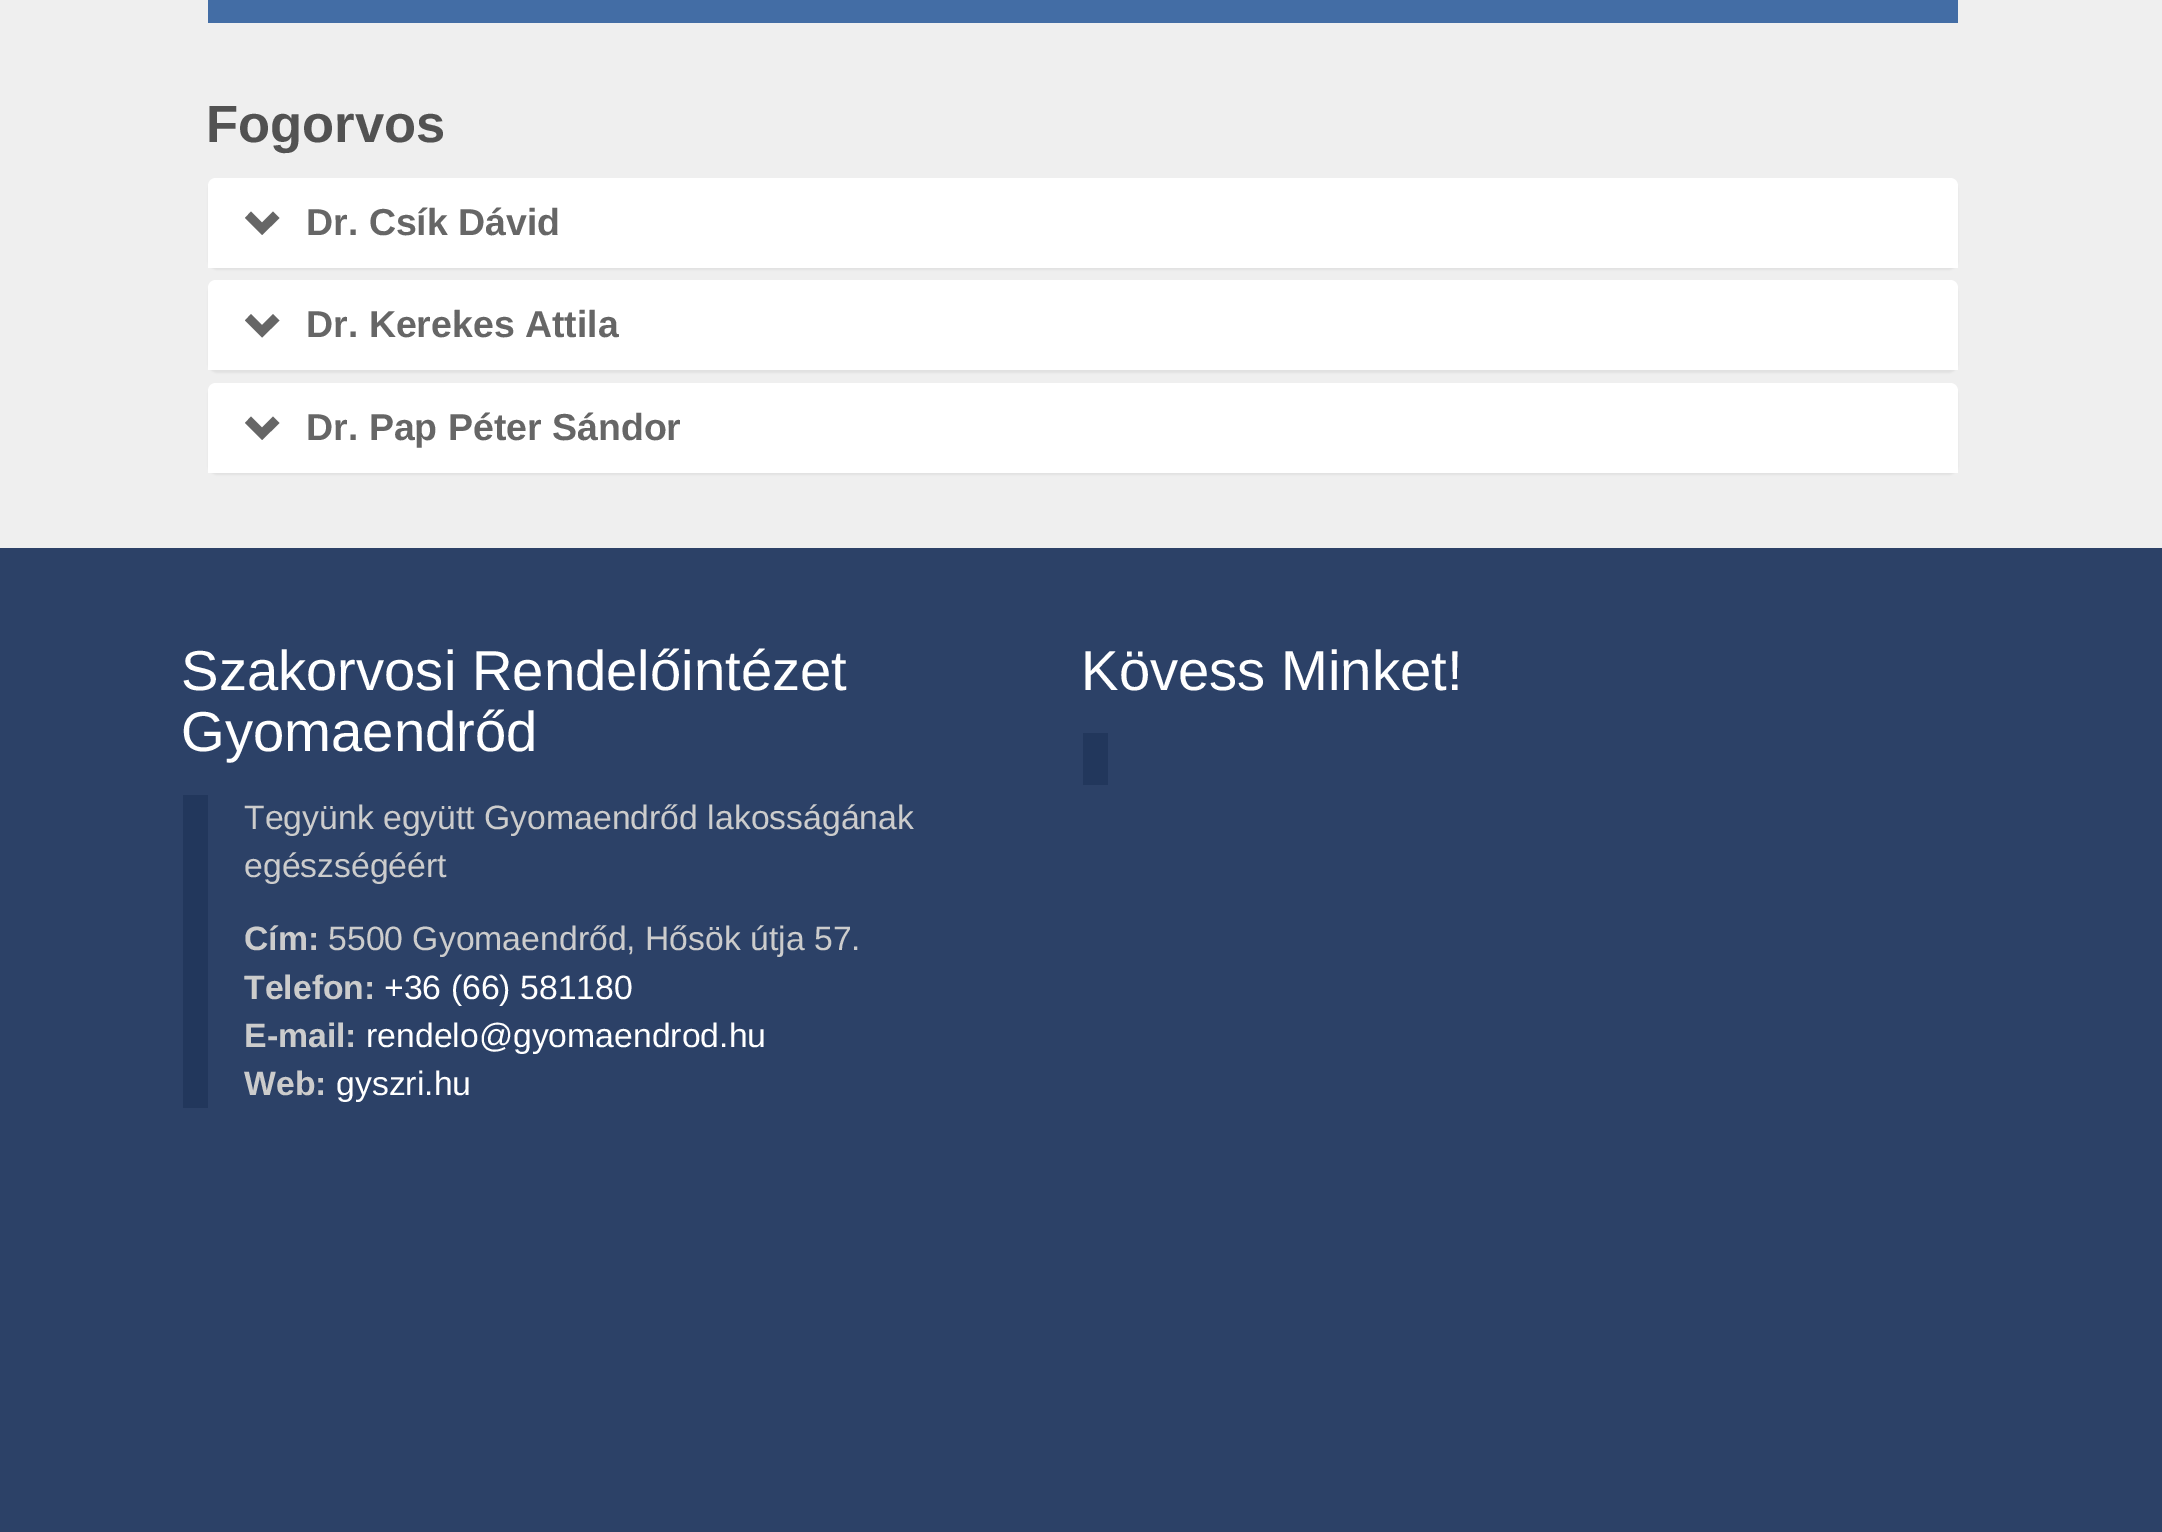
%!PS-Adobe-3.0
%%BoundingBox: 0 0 2162 1532
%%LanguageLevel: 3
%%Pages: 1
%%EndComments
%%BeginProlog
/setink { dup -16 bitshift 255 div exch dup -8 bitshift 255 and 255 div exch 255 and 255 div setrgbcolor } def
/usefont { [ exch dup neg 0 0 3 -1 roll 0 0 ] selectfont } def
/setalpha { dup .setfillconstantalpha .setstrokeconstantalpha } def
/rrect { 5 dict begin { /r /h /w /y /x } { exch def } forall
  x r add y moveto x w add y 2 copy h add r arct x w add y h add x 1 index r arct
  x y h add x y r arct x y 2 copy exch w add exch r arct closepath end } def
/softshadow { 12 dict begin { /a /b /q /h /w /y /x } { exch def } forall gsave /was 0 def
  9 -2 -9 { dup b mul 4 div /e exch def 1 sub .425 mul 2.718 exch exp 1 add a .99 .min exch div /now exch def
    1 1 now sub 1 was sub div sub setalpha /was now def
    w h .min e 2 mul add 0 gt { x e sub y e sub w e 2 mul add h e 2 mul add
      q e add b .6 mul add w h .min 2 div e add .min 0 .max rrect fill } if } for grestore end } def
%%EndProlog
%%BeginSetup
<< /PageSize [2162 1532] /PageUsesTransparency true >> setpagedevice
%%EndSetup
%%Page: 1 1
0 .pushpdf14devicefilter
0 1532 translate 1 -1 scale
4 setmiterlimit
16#EFEFEF setink
0 0 2162 1532 rectfill
16#436DA5 setink
208 0 1750 23 rectfill
/LiberationSans-Bold 52.5 usefont
16#525252 setink
206 142 moveto (Fogorvos) show
16#000000 setink
208 180 1750 90 10 1 0.05 softshadow
16#FFFFFF setink
216 178 moveto 1950 178 lineto 1954.5 178 1958 181.5 1958 186 curveto 1958 268 lineto 208 268 lineto 208 186 lineto 208 181.5 211.5 178 216 178 curveto closepath fill
16#666666 setink
279.5 218 moveto 262 235 lineto 245 218 lineto 251 211.5 lineto 262 222.5 lineto 273 211.5 lineto closepath fill
/LiberationSans-Bold 37.5 usefont
306 235 moveto (Dr. Csík Dávid) show
16#000000 setink
208 283 1750 90 10 1 0.05 softshadow
16#FFFFFF setink
216 280 moveto 1950 280 lineto 1954.5 280 1958 283.5 1958 288 curveto 1958 370 lineto 208 370 lineto 208 288 lineto 208 283.5 211.5 280 216 280 curveto closepath fill
16#666666 setink
279.5 320.5 moveto 262 337.5 lineto 245 320.5 lineto 251 314 lineto 262 325 lineto 273 314 lineto closepath fill
306 337 moveto (Dr. Kerekes Attila) show
16#000000 setink
208 385 1750 90 10 1 0.05 softshadow
16#FFFFFF setink
216 383 moveto 1950 383 lineto 1954.5 383 1958 386.5 1958 391 curveto 1958 473 lineto 208 473 lineto 208 391 lineto 208 386.5 211.5 383 216 383 curveto closepath fill
16#666666 setink
279.5 423 moveto 262 440 lineto 245 423 lineto 251 416.5 lineto 262 427.5 lineto 273 416.5 lineto closepath fill
306 440 moveto (Dr. Pap Péter Sándor) show
16#2C4167 setink
0 548 2162 984 rectfill
/LiberationSans-Regular 56.25 usefont
16#FFFFFF setink
181 690 moveto (Szakorvosi Rendelőintézet) show
181 751 moveto (Gyomaendrőd) show
16#22375C setink
183 795 25 313 rectfill
/LiberationSans-Regular 33.75 usefont
16#CCCCCC setink
244 829 moveto (Tegyünk együtt Gyomaendrőd lakosságának) show
244 877 moveto (egészségéért) show
/LiberationSans-Bold 33.75 usefont
244 950 moveto (Cím:) show
/LiberationSans-Regular 33.75 usefont
328 950 moveto (5500 Gyomaendrőd, Hősök útja 57.) show
/LiberationSans-Bold 33.75 usefont
244 999 moveto (Telefon:) show
/LiberationSans-Regular 33.75 usefont
16#FFFFFF setink
384 999 moveto (+36 \(66\) 581180) show
/LiberationSans-Bold 33.75 usefont
16#CCCCCC setink
244 1047 moveto (E-mail:) show
/LiberationSans-Regular 33.75 usefont
16#FFFFFF setink
366 1047 moveto (rendelo@gyomaendrod.hu) show
/LiberationSans-Bold 33.75 usefont
16#CCCCCC setink
244 1095 moveto (Web:) show
/LiberationSans-Regular 33.75 usefont
16#FFFFFF setink
336 1095 moveto (gyszri.hu) show
/LiberationSans-Regular 56.25 usefont
1081 690 moveto (Kövess Minket!) show
16#22375C setink
1083 733 25 52 rectfill
.poppdf14devicefilter showpage
%%EOF
